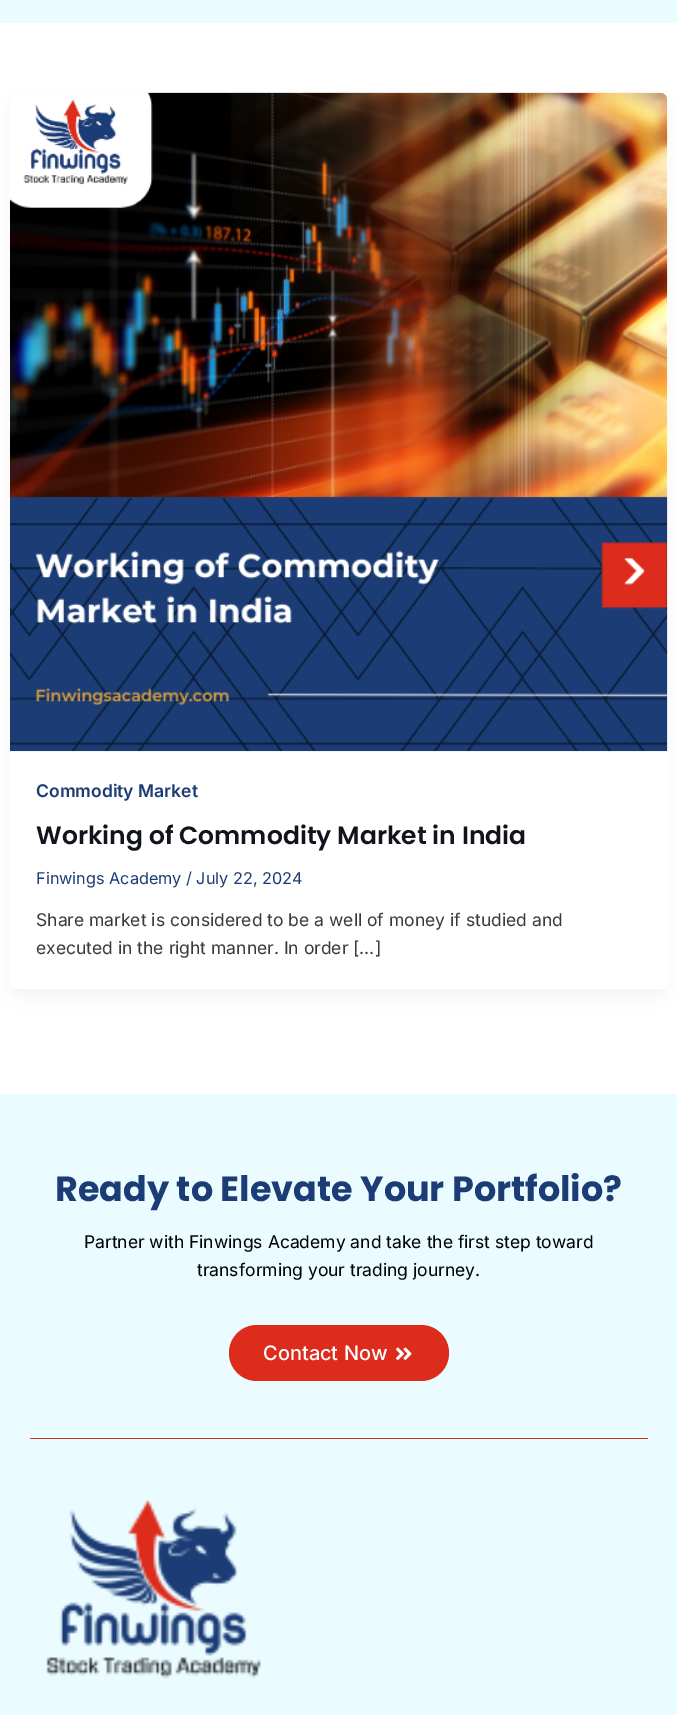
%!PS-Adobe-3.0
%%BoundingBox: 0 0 677 1715
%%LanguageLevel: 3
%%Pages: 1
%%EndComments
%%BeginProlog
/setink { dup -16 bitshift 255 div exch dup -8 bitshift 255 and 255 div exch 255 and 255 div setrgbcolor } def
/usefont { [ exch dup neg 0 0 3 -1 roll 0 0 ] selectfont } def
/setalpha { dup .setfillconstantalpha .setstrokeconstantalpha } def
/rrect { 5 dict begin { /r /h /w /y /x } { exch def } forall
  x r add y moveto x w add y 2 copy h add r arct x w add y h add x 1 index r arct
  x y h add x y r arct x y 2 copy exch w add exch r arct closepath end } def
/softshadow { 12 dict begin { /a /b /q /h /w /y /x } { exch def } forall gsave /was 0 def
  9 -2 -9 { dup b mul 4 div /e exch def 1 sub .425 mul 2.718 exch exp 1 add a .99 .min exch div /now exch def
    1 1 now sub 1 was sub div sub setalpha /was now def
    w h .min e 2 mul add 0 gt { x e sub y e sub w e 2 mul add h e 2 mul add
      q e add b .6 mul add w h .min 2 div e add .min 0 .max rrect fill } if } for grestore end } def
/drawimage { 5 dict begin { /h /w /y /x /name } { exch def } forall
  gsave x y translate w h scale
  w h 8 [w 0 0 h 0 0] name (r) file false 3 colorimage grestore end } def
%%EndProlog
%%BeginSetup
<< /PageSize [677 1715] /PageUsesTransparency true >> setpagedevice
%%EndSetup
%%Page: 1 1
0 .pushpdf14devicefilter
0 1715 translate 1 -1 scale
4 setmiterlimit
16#FFFFFF setink
0 0 677 1715 rectfill
16#EAFCFF setink
0 0 677 23 rectfill
16#101828 setink
13 103 652 891 5 9.5 0.05 softshadow
16#FFFFFF setink
10 93 658 896 8 rrect fill
(img1.raw) 10 92 658 660 drawimage
/Inter-SemiBold 17.5 usefont
16#1C3C76 setink
36 797 moveto (Commodity Market) show
/Poppins-SemiBold 25 usefont
16#12141D setink
36 844 moveto (Working of Commodity Market in India) show
/Inter-Regular 16.25 usefont
16#1C3C76 setink
36 884 moveto (Finwings Academy / July 22, 2024) show
/Inter-Regular 17.5 usefont
16#3A3A3D setink
36 926 moveto (Share market is considered to be a well of money if studied and) show
36 954 moveto (executed in the right manner. In order […]) show
16#EAFCFF setink
0 1094 677 621 rectfill
16#DD2B1C setink
30 1438 618 1 rectfill
/Poppins-Bold 35 usefont
16#1C3C76 setink
55 1201 moveto (Ready to Elevate Your Portfolio?) show
/Inter-Regular 17.5 usefont
16#000000 setink
84 1248 moveto (Partner with Finwings Academy and take the first step toward) show
197 1276 moveto (transforming your trading journey.) show
16#DD2B1C setink
229 1325 220 56 28 rrect fill
/Inter-Medium 20 usefont
16#FFFFFF setink
263 1360 moveto (Contact Now) show
(img2.raw) 396 1347 16 13 drawimage
(img3.raw) 46 1500 215 179 drawimage
.poppdf14devicefilter showpage
%%EOF
